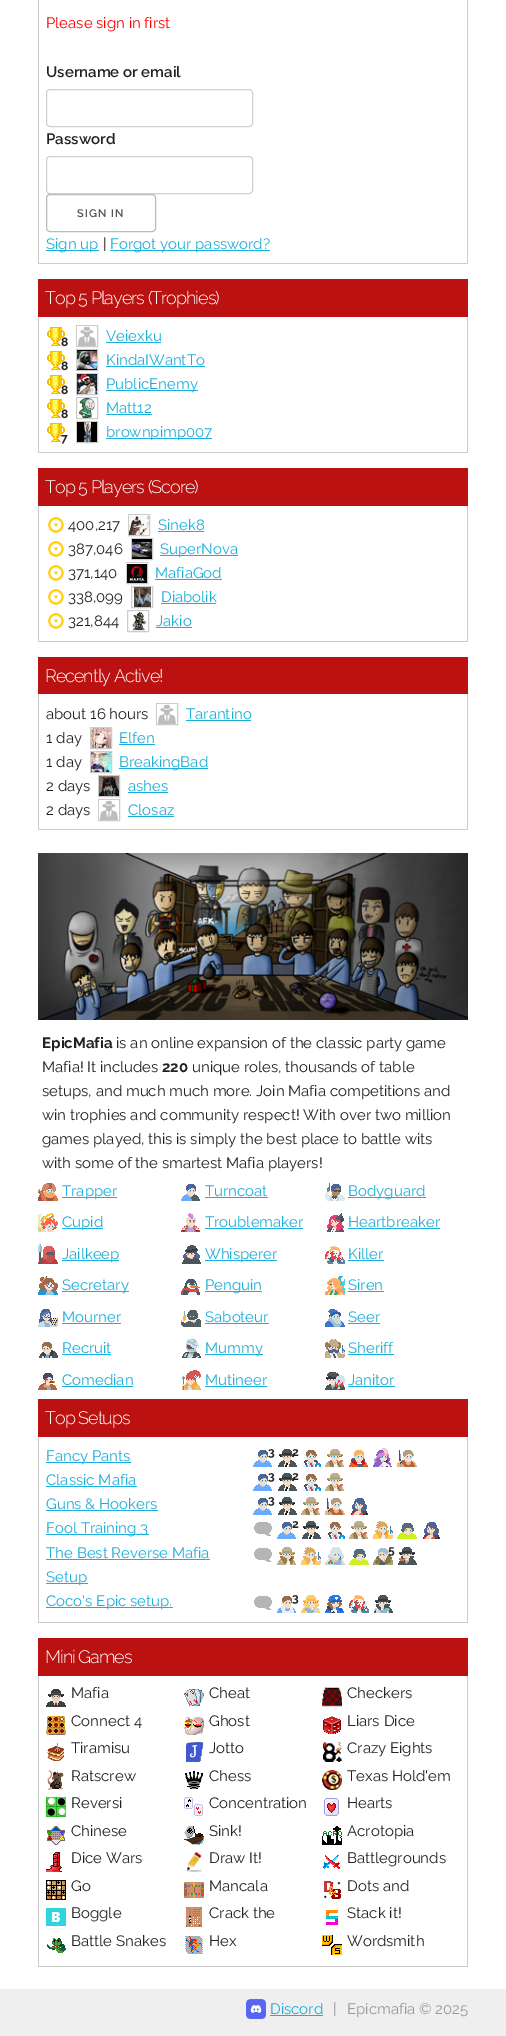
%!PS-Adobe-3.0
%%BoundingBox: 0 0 506 2036
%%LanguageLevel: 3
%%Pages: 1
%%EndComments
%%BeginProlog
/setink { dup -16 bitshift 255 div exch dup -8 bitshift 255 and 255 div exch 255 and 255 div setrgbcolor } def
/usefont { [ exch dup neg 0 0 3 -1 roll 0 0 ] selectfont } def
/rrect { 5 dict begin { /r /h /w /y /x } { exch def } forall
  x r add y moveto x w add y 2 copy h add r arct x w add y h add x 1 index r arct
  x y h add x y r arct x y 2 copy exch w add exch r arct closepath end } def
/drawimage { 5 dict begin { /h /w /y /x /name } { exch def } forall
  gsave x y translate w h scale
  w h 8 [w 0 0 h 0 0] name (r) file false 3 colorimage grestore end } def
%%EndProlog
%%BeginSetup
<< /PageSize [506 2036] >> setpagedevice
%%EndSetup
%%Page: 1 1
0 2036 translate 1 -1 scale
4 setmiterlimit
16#FFFFFF setink
0 0 506 2036 rectfill
[
    [467 0 1 264 16#CCCCCC]
    [38 263 430 1 16#CCCCCC]
    [38 0 1 264 16#CCCCCC]
] { aload pop setink rectfill } forall
/Raleway-Regular 15 usefont
16#FF0000 setink
46 28 moveto (Please sign in first) show
/Raleway-SemiBold 15 usefont
16#222222 setink
46 77 moveto (Username or email) show
16#D1D1D1 setink
46.5 89.5 206 37 3.5 rrect stroke
16#222222 setink
46 144 moveto (Password) show
16#D1D1D1 setink
46.5 156.5 206 37 3.5 rrect stroke
16#BBBBBB setink
46.5 194.5 109 37 3.5 rrect stroke
/Raleway-SemiBold 11 usefont
16#555555 setink
77 217 moveto 1 0 (SIGN IN) ashow
16#1EAEDB setink
46 250 53 1 rectfill
/Raleway-Regular 15 usefont
46 249 moveto (Sign up) show
16#222222 setink
103 249 moveto (|) show
16#1EAEDB setink
110 250 160 1 rectfill
110 249 moveto (Forgot your password?) show
16#BB1111 setink
38 279 430 38 rectfill
/Raleway-Light 18 usefont
16#FFFFFF setink
45 304 moveto -1 0 (Top 5 Players \(Trophies\)) ashow
[
    [467 317 1 136 16#CCCCCC]
    [38 452 430 1 16#CCCCCC]
    [38 317 1 136 16#CCCCCC]
] { aload pop setink rectfill } forall
(img1.raw) 47 327 18 19 drawimage
/Raleway-Bold 12 usefont
16#222222 setink
61 346 moveto (8) show
16#CCCCCC setink
76.5 325.5 21 21 rectstroke
(img2.raw) 77 326 19 20 drawimage
/Raleway-Regular 15 usefont
16#1EAEDB setink
106 341 moveto (Veiexku) show
106 342 55 1 rectfill
(img1.raw) 47 351 18 19 drawimage
/Raleway-Bold 12 usefont
16#222222 setink
61 370 moveto (8) show
16#CCCCCC setink
76.5 349.5 21 21 rectstroke
(img3.raw) 77 350 20 20 drawimage
/Raleway-Regular 15 usefont
16#1EAEDB setink
106 365 moveto (KindaIWantTo) show
106 366 99 1 rectfill
(img1.raw) 47 375 18 19 drawimage
/Raleway-Bold 12 usefont
16#222222 setink
61 394 moveto (8) show
16#CCCCCC setink
76.5 373.5 21 21 rectstroke
(img4.raw) 77 374 20 20 drawimage
16#1EAEDB setink
106 390 92 1 rectfill
/Raleway-Regular 15 usefont
106 389 moveto (PublicEnemy) show
(img1.raw) 47 399 18 19 drawimage
/Raleway-Bold 12 usefont
16#222222 setink
61 418 moveto (8) show
16#CCCCCC setink
76.5 397.5 21 21 rectstroke
(img5.raw) 79 398 16 20 drawimage
/Raleway-Regular 15 usefont
16#1EAEDB setink
106 413 moveto (Matt12) show
106 414 46 1 rectfill
(img1.raw) 47 423 18 19 drawimage
/Raleway-Bold 12 usefont
16#222222 setink
61 442 moveto (7) show
16#CCCCCC setink
76.5 421.5 21 21 rectstroke
(img6.raw) 77 422 20 20 drawimage
16#1EAEDB setink
106 438 106 1 rectfill
/Raleway-Regular 15 usefont
106 437 moveto (brownpimp007) show
16#BB1111 setink
38 468 430 38 rectfill
/Raleway-Light 18 usefont
16#FFFFFF setink
45 493 moveto -1 0 (Top 5 Players \(Score\)) ashow
[
    [467 506 1 136 16#CCCCCC]
    [38 641 430 1 16#CCCCCC]
    [38 506 1 136 16#CCCCCC]
] { aload pop setink rectfill } forall
(img7.raw) 48 517 16 16 drawimage
/Raleway-Regular 15 usefont
16#222222 setink
68 530 moveto (400,217) show
16#CCCCCC setink
128.5 514.5 21 21 rectstroke
(img8.raw) 129 515 20 20 drawimage
16#1EAEDB setink
158 530 moveto (Sinek8) show
158 531 46 1 rectfill
(img7.raw) 48 541 16 16 drawimage
16#222222 setink
68 554 moveto (387,046) show
16#CCCCCC setink
131.5 538.5 21 21 rectstroke
(img9.raw) 132 539 20 20 drawimage
16#1EAEDB setink
160 555 78 1 rectfill
160 554 moveto (SuperNova) show
(img7.raw) 48 565 16 16 drawimage
16#222222 setink
68 578 moveto (371,140) show
16#CCCCCC setink
126.5 562.5 21 21 rectstroke
(img10.raw) 127 563 20 20 drawimage
16#1EAEDB setink
155 578 moveto (MafiaGod) show
155 579 67 1 rectfill
(img7.raw) 48 589 16 16 drawimage
16#222222 setink
68 602 moveto (338,099) show
16#CCCCCC setink
131.5 586.5 21 21 rectstroke
(img11.raw) 134 587 17 20 drawimage
16#1EAEDB setink
161 602 moveto (Diabolik) show
161 603 55 1 rectfill
(img7.raw) 48 613 16 16 drawimage
16#222222 setink
68 626 moveto (321,844) show
16#CCCCCC setink
127.5 610.5 21 21 rectstroke
(img12.raw) 132 611 15 20 drawimage
16#1EAEDB setink
156 626 moveto (Jakio) show
156 627 36 1 rectfill
16#BB1111 setink
38 657 430 37 rectfill
/Raleway-Light 18 usefont
16#FFFFFF setink
45 682 moveto -1 0 (Recently Active!) ashow
[
    [467 694 1 136 16#CCCCCC]
    [38 829 430 1 16#CCCCCC]
    [38 694 1 136 16#CCCCCC]
] { aload pop setink rectfill } forall
/Raleway-Regular 15 usefont
16#222222 setink
46 719 moveto (about 16 hours) show
16#CCCCCC setink
156.5 703.5 21 21 rectstroke
(img2.raw) 157 704 19 20 drawimage
16#1EAEDB setink
186 719 moveto (Tarantino) show
186 720 65 1 rectfill
16#222222 setink
46 743 moveto (1 day) show
16#CCCCCC setink
90.5 727.5 21 21 rectstroke
(img13.raw) 91 728 20 20 drawimage
16#1EAEDB setink
119 743 moveto (Elfen) show
119 744 36 1 rectfill
16#222222 setink
46 767 moveto (1 day) show
16#CCCCCC setink
90.5 751.5 21 21 rectstroke
(img14.raw) 91 752 20 20 drawimage
16#1EAEDB setink
119 768 89 1 rectfill
119 767 moveto (BreakingBad) show
16#222222 setink
46 791 moveto (2 days) show
16#CCCCCC setink
98.5 775.5 21 21 rectstroke
(img15.raw) 99 776 20 20 drawimage
16#1EAEDB setink
128 791 moveto (ashes) show
128 792 40 1 rectfill
16#222222 setink
46 815 moveto (2 days) show
16#CCCCCC setink
98.5 799.5 21 21 rectstroke
(img2.raw) 99 800 19 20 drawimage
16#1EAEDB setink
128 815 moveto (Closaz) show
128 816 46 1 rectfill
(img16.raw) 38 853 430 167 drawimage
/Raleway-Bold 15 usefont
16#222222 setink
42 1048 moveto (EpicMafia) show
/Raleway-Regular 15 usefont
116 1048 moveto (is an online expansion of the classic party game) show
42 1072 moveto (Mafia! It includes) show
/Raleway-Bold 15 usefont
162 1072 moveto (220) show
/Raleway-Regular 15 usefont
[
    [(unique roles, thousands of table) 192 1072]
    [(setups, and much much more. Join Mafia competitions and) 42 1096]
    [(win trophies and community respect! With over two million) 42 1120]
    [(games played, this is simply the best place to battle wits) 42 1144]
    [(with some of the smartest Mafia players!) 42 1168]
] { aload pop moveto show } forall
(img17.raw) 38 1183 20 18 drawimage
16#1EAEDB setink
62 1197 55 1 rectfill
62 1196 moveto (Trapper) show
(img18.raw) 181 1184 19 17 drawimage
205 1196 moveto (Turncoat) show
205 1197 63 1 rectfill
(img19.raw) 325 1183 20 18 drawimage
348 1197 78 1 rectfill
348 1196 moveto (Bodyguard) show
(img20.raw) 38 1213 20 19 drawimage
62 1228 41 1 rectfill
62 1227 moveto (Cupid) show
(img21.raw) 181 1213 19 19 drawimage
205 1227 moveto (Troublemaker) show
205 1228 98 1 rectfill
(img22.raw) 327 1213 17 19 drawimage
348 1227 moveto (Heartbreaker) show
348 1228 92 1 rectfill
(img23.raw) 38 1244 20 20 drawimage
62 1260 57 1 rectfill
62 1259 moveto (Jailkeep) show
(img24.raw) 182 1245 19 19 drawimage
205 1260 72 1 rectfill
205 1259 moveto (Whisperer) show
(img25.raw) 325 1246 20 18 drawimage
348 1259 moveto (Killer) show
348 1260 36 1 rectfill
(img26.raw) 38 1276 20 19 drawimage
62 1291 67 1 rectfill
62 1290 moveto (Secretary) show
(img27.raw) 181 1279 19 16 drawimage
205 1291 57 1 rectfill
205 1290 moveto (Penguin) show
(img28.raw) 325 1276 20 19 drawimage
348 1290 moveto (Siren) show
348 1291 36 1 rectfill
(img29.raw) 38 1309 20 18 drawimage
62 1322 moveto (Mourner) show
62 1323 59 1 rectfill
(img30.raw) 181 1310 20 17 drawimage
205 1322 moveto (Saboteur) show
205 1323 64 1 rectfill
(img31.raw) 325 1309 20 18 drawimage
348 1322 moveto (Seer) show
348 1323 32 1 rectfill
(img32.raw) 39 1342 19 16 drawimage
62 1353 moveto (Recruit) show
62 1354 49 1 rectfill
(img33.raw) 182 1339 19 19 drawimage
205 1354 58 1 rectfill
205 1353 moveto (Mummy) show
(img34.raw) 325 1339 20 19 drawimage
348 1353 moveto (Sheriff) show
348 1354 46 1 rectfill
(img35.raw) 38 1373 19 17 drawimage
62 1385 moveto (Comedian) show
62 1386 71 1 rectfill
(img36.raw) 182 1370 19 20 drawimage
205 1385 moveto (Mutineer) show
205 1386 62 1 rectfill
(img37.raw) 325 1372 20 18 drawimage
348 1385 moveto (Janitor) show
348 1386 47 1 rectfill
16#BB1111 setink
38 1399 430 38 rectfill
/Raleway-Light 18 usefont
16#FFFFFF setink
45 1424 moveto -1 0 (Top Setups) ashow
[
    [467 1437 1 186 16#CCCCCC]
    [38 1622 430 1 16#CCCCCC]
    [38 1437 1 186 16#CCCCCC]
    [46 1462 85 1 16#1EAEDB]
] { aload pop setink rectfill } forall
/Raleway-Regular 15 usefont
46 1461 moveto (Fancy Pants) show
(img38.raw) 253 1450 19 17 drawimage
/Raleway-Bold 12 usefont
16#222222 setink
268 1456 moveto (3) show
(img39.raw) 278 1449 19 18 drawimage
292 1456 moveto (2) show
(img40.raw) 301 1450 20 17 drawimage
(img41.raw) 325 1449 19 18 drawimage
(img42.raw) 349 1450 19 17 drawimage
(img43.raw) 373 1448 19 19 drawimage
(img44.raw) 397 1450 20 17 drawimage
/Raleway-Regular 15 usefont
16#1EAEDB setink
46 1485 moveto (Classic Mafia) show
46 1486 91 1 rectfill
(img38.raw) 253 1474 19 17 drawimage
/Raleway-Bold 12 usefont
16#222222 setink
268 1480 moveto (3) show
(img39.raw) 278 1473 19 18 drawimage
292 1480 moveto (2) show
(img40.raw) 301 1474 20 17 drawimage
(img41.raw) 325 1473 19 18 drawimage
/Raleway-Regular 15 usefont
16#1EAEDB setink
46 1509 moveto (Guns & Hookers) show
46 1510 112 1 rectfill
(img38.raw) 253 1498 19 17 drawimage
/Raleway-Bold 12 usefont
16#222222 setink
268 1504 moveto (3) show
(img39.raw) 278 1497 19 18 drawimage
(img41.raw) 301 1497 19 18 drawimage
(img44.raw) 325 1498 20 17 drawimage
(img45.raw) 351 1498 17 17 drawimage
16#1EAEDB setink
46 1534 103 1 rectfill
/Raleway-Regular 15 usefont
46 1533 moveto (Fool Training 3) show
(img46.raw) 254 1522 18 14 drawimage
(img38.raw) 277 1522 19 17 drawimage
/Raleway-Bold 12 usefont
16#222222 setink
292 1528 moveto (2) show
(img39.raw) 302 1521 19 18 drawimage
(img40.raw) 325 1522 20 17 drawimage
(img41.raw) 349 1521 19 18 drawimage
(img47.raw) 373 1521 20 18 drawimage
(img48.raw) 397 1523 20 16 drawimage
(img45.raw) 423 1522 17 17 drawimage
/Raleway-Regular 15 usefont
16#1EAEDB setink
46 1558 moveto (The Best Reverse Mafia) show
46 1559 164 1 rectfill
46 1583 42 1 rectfill
46 1582 moveto (Setup) show
(img46.raw) 254 1548 18 14 drawimage
(img49.raw) 277 1547 19 18 drawimage
(img47.raw) 301 1547 20 18 drawimage
(img50.raw) 325 1547 20 18 drawimage
(img48.raw) 349 1549 20 16 drawimage
(img51.raw) 373 1548 20 17 drawimage
/Raleway-Bold 12 usefont
16#222222 setink
388 1554 moveto (5) show
(img52.raw) 398 1547 19 18 drawimage
16#1EAEDB setink
46 1607 127 1 rectfill
/Raleway-Regular 15 usefont
46 1606 moveto (Coco's Epic setup.) show
(img46.raw) 254 1596 18 14 drawimage
(img53.raw) 277 1596 19 17 drawimage
/Raleway-Bold 12 usefont
16#222222 setink
292 1602 moveto (3) show
(img54.raw) 301 1595 19 18 drawimage
(img55.raw) 325 1595 19 18 drawimage
(img25.raw) 349 1595 20 18 drawimage
(img56.raw) 374 1595 19 18 drawimage
16#BB1111 setink
38 1638 430 38 rectfill
/Raleway-Light 18 usefont
16#FFFFFF setink
45 1663 moveto -1 0 (Mini Games) ashow
[
    [467 1676 1 291 16#CCCCCC]
    [38 1966 430 1 16#CCCCCC]
    [38 1676 1 291 16#CCCCCC]
] { aload pop setink rectfill } forall
(img57.raw) 46 1689 20 18 drawimage
/Raleway-Regular 15 usefont
16#222222 setink
71 1698 moveto (Mafia) show
(img58.raw) 184 1689 20 17 drawimage
209 1698 moveto (Cheat) show
(img59.raw) 322 1687 20 20 drawimage
347 1698 moveto (Checkers) show
(img60.raw) 46 1716 20 19 drawimage
71 1726 moveto (Connect 4) show
(img61.raw) 184 1717 20 18 drawimage
209 1726 moveto (Ghost) show
(img62.raw) 323 1716 18 18 drawimage
347 1726 moveto (Liars Dice) show
(img63.raw) 47 1743 17 18 drawimage
71 1753 moveto (Tiramisu) show
(img64.raw) 186 1742 18 20 drawimage
209 1753 moveto (Jotto) show
(img65.raw) 323 1742 19 20 drawimage
347 1753 moveto (Crazy Eights) show
(img66.raw) 47 1770 17 20 drawimage
71 1781 moveto (Ratscrew) show
(img67.raw) 185 1771 18 18 drawimage
209 1781 moveto (Chess) show
(img68.raw) 322 1770 20 20 drawimage
347 1781 moveto (Texas Hold'em) show
(img69.raw) 46 1797 20 20 drawimage
71 1808 moveto (Reversi) show
(img70.raw) 184 1797 19 19 drawimage
209 1808 moveto (Concentration) show
(img71.raw) 324 1798 15 18 drawimage
347 1808 moveto (Hearts) show
(img72.raw) 47 1826 18 19 drawimage
71 1836 moveto (Chinese) show
(img73.raw) 184 1826 20 19 drawimage
209 1836 moveto (Sink!) show
(img74.raw) 322 1826 20 19 drawimage
347 1836 moveto (Acrotopia) show
(img75.raw) 46 1852 16 20 drawimage
71 1863 moveto (Dice Wars) show
(img76.raw) 186 1852 16 20 drawimage
209 1863 moveto (Draw It!) show
(img77.raw) 323 1855 17 14 drawimage
347 1863 moveto (Battlegrounds) show
(img78.raw) 46 1880 20 20 drawimage
71 1891 moveto (Go) show
(img79.raw) 184 1882 20 16 drawimage
209 1891 moveto (Mancala) show
(img80.raw) 323 1881 18 18 drawimage
347 1891 moveto (Dots and) show
(img81.raw) 46 1908 20 18 drawimage
71 1918 moveto (Boggle) show
(img82.raw) 186 1907 16 20 drawimage
209 1918 moveto (Crack the) show
(img83.raw) 326 1910 12 15 drawimage
347 1918 moveto (Stack it!) show
(img84.raw) 47 1938 19 15 drawimage
71 1946 moveto (Battle Snakes) show
(img85.raw) 185 1936 18 18 drawimage
209 1946 moveto (Hex) show
(img86.raw) 322 1935 20 20 drawimage
347 1946 moveto (Wordsmith) show
16#EFEFEF setink
0 1989 506 47 rectfill
(img87.raw) 246 1999 20 20 drawimage
16#1EAEDB setink
270 2014 moveto (Discord) show
270 2015 53 1 rectfill
16#999999 setink
333 2014 moveto (|) show
347 2014 moveto (Epicmafia © 2025) show
showpage
%%EOF
